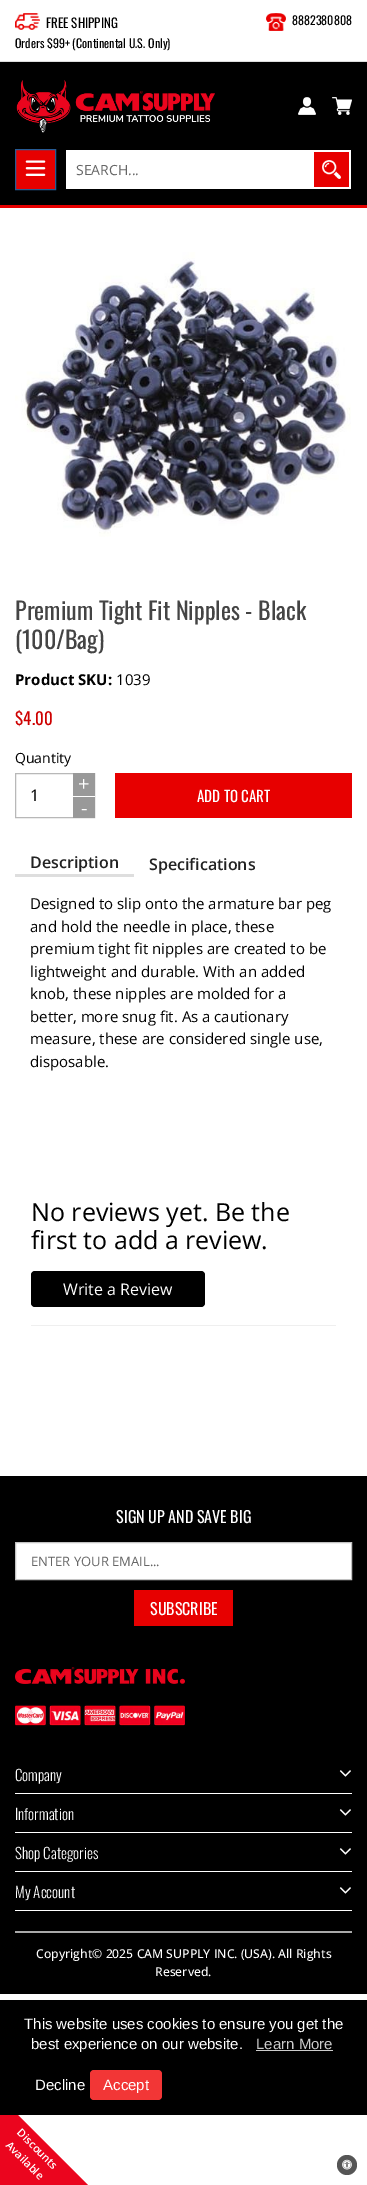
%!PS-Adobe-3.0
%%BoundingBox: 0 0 367 2185
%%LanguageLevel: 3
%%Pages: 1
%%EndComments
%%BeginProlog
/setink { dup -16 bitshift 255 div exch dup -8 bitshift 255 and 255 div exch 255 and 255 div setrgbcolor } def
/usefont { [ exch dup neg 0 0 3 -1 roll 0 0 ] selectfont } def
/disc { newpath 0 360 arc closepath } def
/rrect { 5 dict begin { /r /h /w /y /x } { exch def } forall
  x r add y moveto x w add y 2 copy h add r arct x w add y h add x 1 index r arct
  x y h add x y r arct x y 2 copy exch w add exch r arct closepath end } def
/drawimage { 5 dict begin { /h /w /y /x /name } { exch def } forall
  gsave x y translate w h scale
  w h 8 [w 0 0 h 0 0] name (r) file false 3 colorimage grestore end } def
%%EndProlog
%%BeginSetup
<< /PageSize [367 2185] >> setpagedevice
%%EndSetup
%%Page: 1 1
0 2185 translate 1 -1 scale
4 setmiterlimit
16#FFFFFF setink
0 0 367 2185 rectfill
16#E70000 setink
0 205 367 3 rectfill
16#DDDDDD setink
0 61 367 1 rectfill
(img1.raw) 15 13 25 17 drawimage
/Oswald-Regular 13 usefont
16#000000 setink
46 28 moveto (FREE SHIPPING) show
/Oswald-Regular 12 usefont
15 48 moveto (Orders $99+ \(Continental U.S. Only\)) show
(img2.raw) 266 13 20 18 drawimage
292 25 moveto (8882380808) show
0 62 367 143 rectfill
(img3.raw) 16 80 199 53 drawimage
(img4.raw) 298 97 18 18 drawimage
(img5.raw) 332 97 20 18 drawimage
16#E70000 setink
15.5 149.5 moveto 55.5 149.5 lineto 55.5 189.5 lineto 15.5 189.5 lineto closepath gsave fill grestore
16#265B94 setink
stroke
(img6.raw) 25 160 21 16 drawimage
16#FFFFFF setink
66 150 285 39 rectfill
/OpenSans-Regular 14 usefont
16#666666 setink
76 175 moveto (SEARCH...) show
16#E70000 setink
314 152 35 35 rectfill
(img7.raw) 322 160 19 19 drawimage
(img8.raw) 15 252 336 285 drawimage
/Oswald-Regular 24 usefont
16#444444 setink
15 620 moveto (Premium Tight Fit Nipples - Black) show
15 649 moveto (\(100/Bag\)) show
/OpenSans-Bold 15 usefont
16#000000 setink
15 685 moveto (Product SKU:) show
/OpenSans-Regular 15 usefont
116 685 moveto (1039) show
/Oswald-Regular 17 usefont
16#CE0000 setink
15 725 moveto ($4.00) show
/OpenSans-Regular 14 usefont
16#000000 setink
15 763 moveto (Quantity) show
16#B8B8B8 setink
15.5 773.5 79 44 rectstroke
16#999999 setink
73 773 22 23 rectfill
/OpenSans-Regular 20 usefont
16#FFFFFF setink
78 791 moveto (+) show
/OpenSans-Regular 16 usefont
16#000000 setink
30 801 moveto (1) show
16#999999 setink
73 797 22 21 rectfill
16#FFFFFF setink
94 796 1 1 rectfill
/OpenSans-Regular 20 usefont
81 815 moveto (-) show
16#E70000 setink
115 773 237 45 rectfill
/Oswald-Regular 15 usefont
16#FFFFFF setink
197 802 moveto (ADD TO CART) show
16#DEDEDE setink
15 874 119 3 rectfill
/OpenSans-SemiBold 16 usefont
16#222222 setink
30 868 moveto (Description) show
149 870 moveto (Specifications) show
/OpenSans-Regular 15 usefont
16#000000 setink
[
    [(Designed to slip onto the armature bar peg) 30 909]
    [(and hold the needle in place, these) 30 932]
    [(premium tight fit nipples are created to be) 30 954]
    [(lightweight and durable. With an added) 30 977]
    [(knob, these nipples are molded for a) 30 999]
    [(better, more snug fit. As a cautionary) 30 1022]
    [(measure, these are considered single use,) 30 1044]
    [(disposable.) 30 1067]
] { aload pop moveto show } forall
16#EFEFEF setink
31 1325 305 1 rectfill
/OpenSans-Regular 25 usefont
16#000000 setink
31 1221 moveto (No reviews yet. Be the) show
31 1249 moveto (first to add a review.) show
31 1271 174 36 4 rrect fill
/OpenSans-Regular 16 usefont
16#FFFFFF setink
63 1295 moveto (Write a Review) show
16#000000 setink
0 1476 367 518 rectfill
/Oswald-Regular 16 usefont
16#FFFFFF setink
116 1523 moveto (SIGN UP AND SAVE BIG) show
15.5 1542.5 moveto 351.5 1542.5 lineto 351.5 1579.5 lineto 15.5 1579.5 lineto closepath gsave fill grestore
16#C2C2C2 setink
stroke
/OpenSans-Regular 13 usefont
16#666666 setink
31 1566 moveto (ENTER YOUR EMAIL...) show
16#E70000 setink
134 1590 99 36 rectfill
/Oswald-Regular 16 usefont
16#FFFFFF setink
150 1615 moveto (SUBSCRIBE) show
(img9.raw) 15 1667 170 17 drawimage
(img10.raw) 15 1704 170 23 drawimage
15 1793 337 1 rectfill
/Oswald-Light 15 usefont
15 1781 moveto (Company) show
(img11.raw) 339 1770 12 7 drawimage
15 1832 337 1 rectfill
15 1820 moveto (Information) show
(img11.raw) 339 1809 12 7 drawimage
15 1871 337 1 rectfill
15 1859 moveto (Shop Categories) show
(img11.raw) 339 1848 12 7 drawimage
15 1910 337 1 rectfill
15 1898 moveto (My Account) show
(img11.raw) 339 1887 12 7 drawimage
16#A9A9A9 setink
15 1931 337 2 rectfill
/OpenSans-Medium 12.2 usefont
16#FFFFFF setink
36 1958 moveto (Copyright© 2025 CAM SUPPLY INC. \(USA\). All Rights) show
155 1976 moveto (Reserved.) show
16#EB051E setink
94 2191 moveto -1 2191 lineto -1 2096 lineto closepath fill
16#000000 setink
0 2000 367 115 rectfill
/LiberationSans-Regular 15 usefont
16#FFFFFF setink
24 2029 moveto (This website uses cookies to ensure you get the) show
31 2049 moveto (best experience on our website.) show
16#CCCCCC setink
256 2049 moveto (Learn More) show
256 2050 77 1 rectfill
16#FFFFFF setink
35 2090 moveto (Decline) show
16#F23636 setink
90 2070 72 30 4 rrect fill
16#FFFFFF setink
103 2090 moveto (Accept) show
/OpenSans-SemiBold 11 usefont
gsave 16 2133 translate 45 rotate 0 0 moveto (Discounts) show grestore
gsave 5 2146 translate 45 rotate 0 0 moveto (Available) show grestore
16#555555 setink
347 2165 10 disc fill
(img12.raw) 342 2159 10 11 drawimage
showpage
%%EOF
